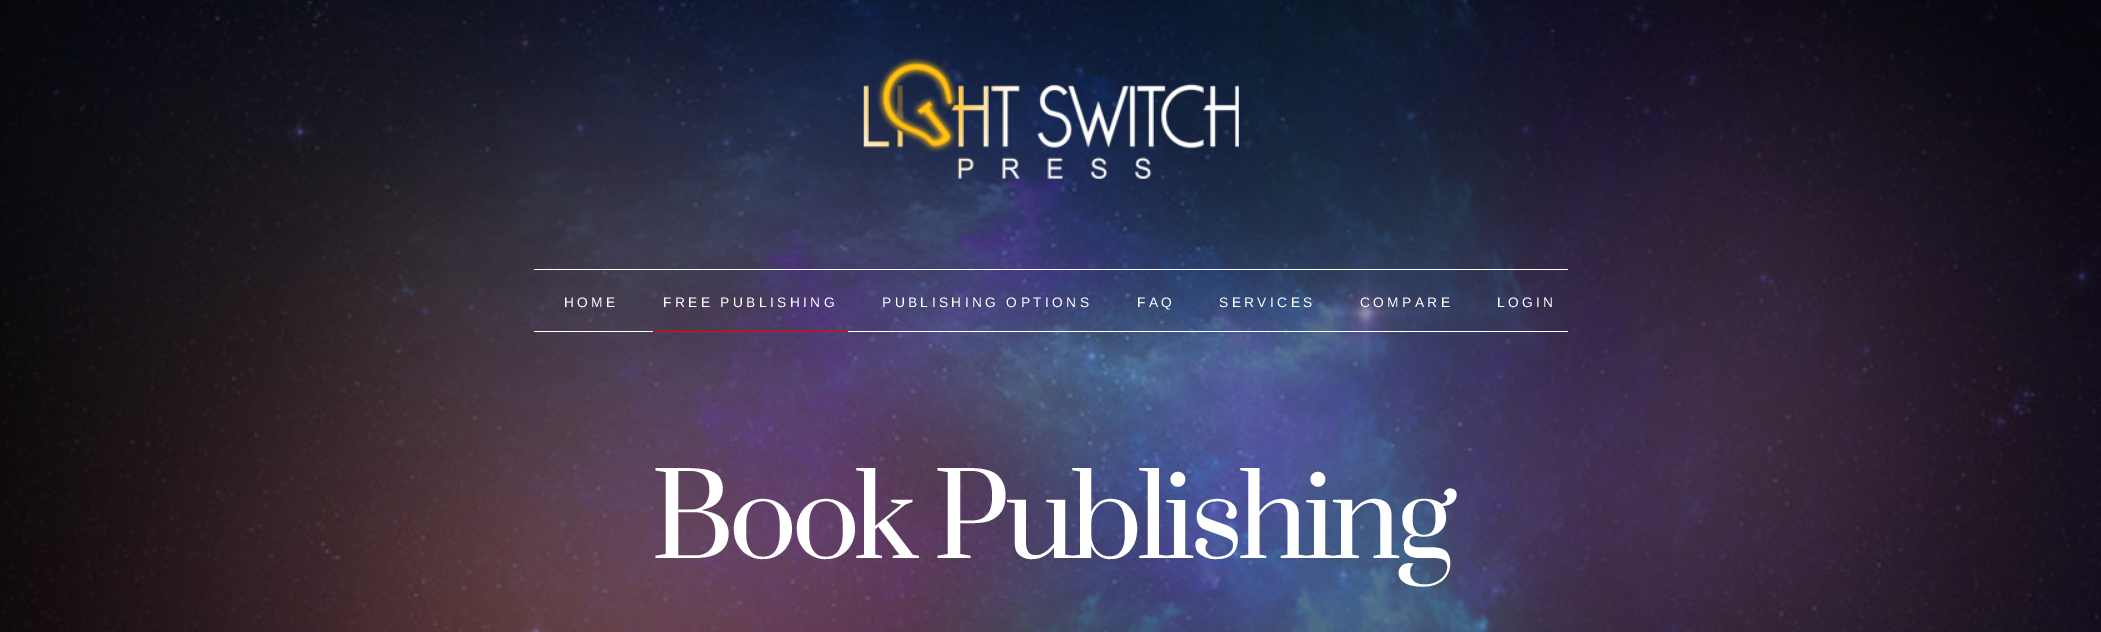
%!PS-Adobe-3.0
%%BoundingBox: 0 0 2101 632
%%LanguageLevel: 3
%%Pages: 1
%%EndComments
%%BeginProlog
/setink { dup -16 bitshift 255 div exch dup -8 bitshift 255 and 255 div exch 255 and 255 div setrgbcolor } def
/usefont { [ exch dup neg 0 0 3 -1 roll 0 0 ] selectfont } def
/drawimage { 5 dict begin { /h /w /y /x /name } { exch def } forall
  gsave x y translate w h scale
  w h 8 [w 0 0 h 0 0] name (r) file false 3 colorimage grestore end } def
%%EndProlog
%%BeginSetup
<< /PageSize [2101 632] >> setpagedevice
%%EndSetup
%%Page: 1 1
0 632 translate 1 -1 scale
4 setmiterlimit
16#FFFFFF setink
0 0 2101 632 rectfill
(img1.raw) 0 0 2101 632 drawimage
(img2.raw) 863 57 376 122 drawimage
534 269 1034 1 rectfill
534 331 1034 1 rectfill
/LiberationSans-Regular 13.75 usefont
564 307 moveto 3.4 0 (HOME) ashow
663 307 moveto 3.4 0 (FREE PUBLISHING) ashow
882 307 moveto 3.4 0 (PUBLISHING OPTIONS) ashow
1137 307 moveto 3.4 0 (FAQ) ashow
1219 307 moveto 3.4 0 (SERVICES) ashow
1360 307 moveto 3.4 0 (COMPARE) ashow
1497 307 moveto 3.4 0 (LOGIN) ashow
16#FF0000 setink
653 331 195 1 rectfill
/Prata-Regular 112.5 usefont
16#FFFFFF setink
651 558 moveto -5.6 0 (Book Publishing) ashow
showpage
%%EOF
